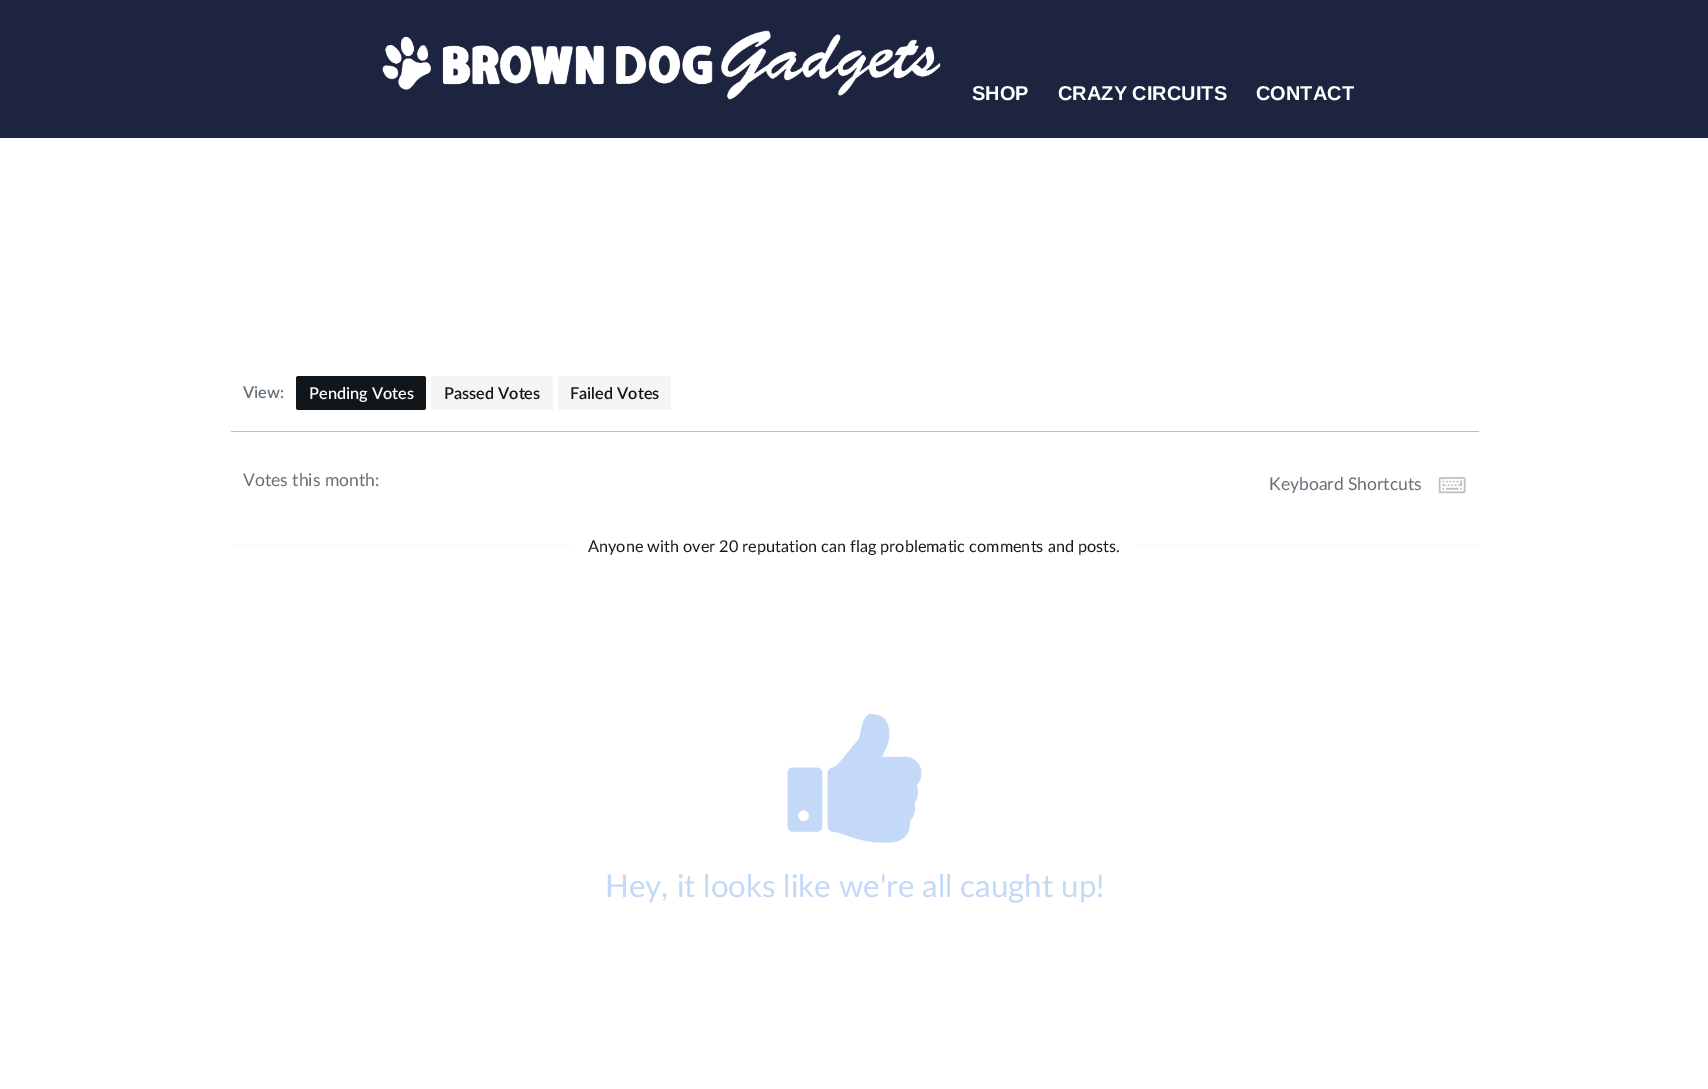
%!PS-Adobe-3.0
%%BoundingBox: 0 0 1708 1089
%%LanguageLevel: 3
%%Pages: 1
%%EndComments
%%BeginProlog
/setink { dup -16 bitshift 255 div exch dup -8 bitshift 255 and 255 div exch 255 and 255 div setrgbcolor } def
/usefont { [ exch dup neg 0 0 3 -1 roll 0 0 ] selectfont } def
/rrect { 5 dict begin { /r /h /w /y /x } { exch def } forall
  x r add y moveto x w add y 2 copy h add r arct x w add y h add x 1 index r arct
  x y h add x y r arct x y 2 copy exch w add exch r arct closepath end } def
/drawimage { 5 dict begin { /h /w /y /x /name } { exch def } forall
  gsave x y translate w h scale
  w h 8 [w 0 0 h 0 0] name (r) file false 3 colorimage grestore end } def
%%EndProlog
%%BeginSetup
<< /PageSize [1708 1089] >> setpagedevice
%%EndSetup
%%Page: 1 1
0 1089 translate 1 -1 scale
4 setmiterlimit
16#FFFFFF setink
0 0 1708 1089 rectfill
16#1D2440 setink
0 0 1708 138 rectfill
(img1.raw) 382 30 559 70 drawimage
/LiberationSans-Bold 20 usefont
16#FFFFFF setink
[
    [(SHOP) 972 100]
    [(CRAZY CIRCUITS) 1058 100]
    [(CONTACT) 1256 100]
] { aload pop moveto show } forall
/Lato-SemiBold 16.25 usefont
16#677079 setink
243 398 moveto (View:) show
16#11161A setink
296 376 130 34 2.5 rrect fill
16#FFFFFF setink
309 399 moveto (Pending Votes) show
16#F5F5F5 setink
431 376 122 34 2.5 rrect fill
16#11161A setink
444 399 moveto (Passed Votes) show
16#F5F5F5 setink
558 376 113 34 2.5 rrect fill
16#11161A setink
570 399 moveto (Failed Votes) show
16#BFBFBF setink
231 431 1248 1 rectfill
/Lato-Regular 17.5 usefont
16#677079 setink
243 486 moveto (Votes this month:) show
1269 490 moveto (Keyboard Shortcuts) show
(img2.raw) 1438 477 28 17 drawimage
16#F5F5F5 setink
231 545 339 1 rectfill
/Lato-Regular 16.25 usefont
16#17191C setink
588 552 moveto (Anyone with over 20 reputation can flag problematic comments and posts.) show
16#F5F5F5 setink
1139 545 340 1 rectfill
(img3.raw) 787 713 135 130 drawimage
/Lato-Regular 31.25 usefont
16#C3D9F8 setink
605 897 moveto (Hey, it looks like we're all caught up!) show
showpage
%%EOF
